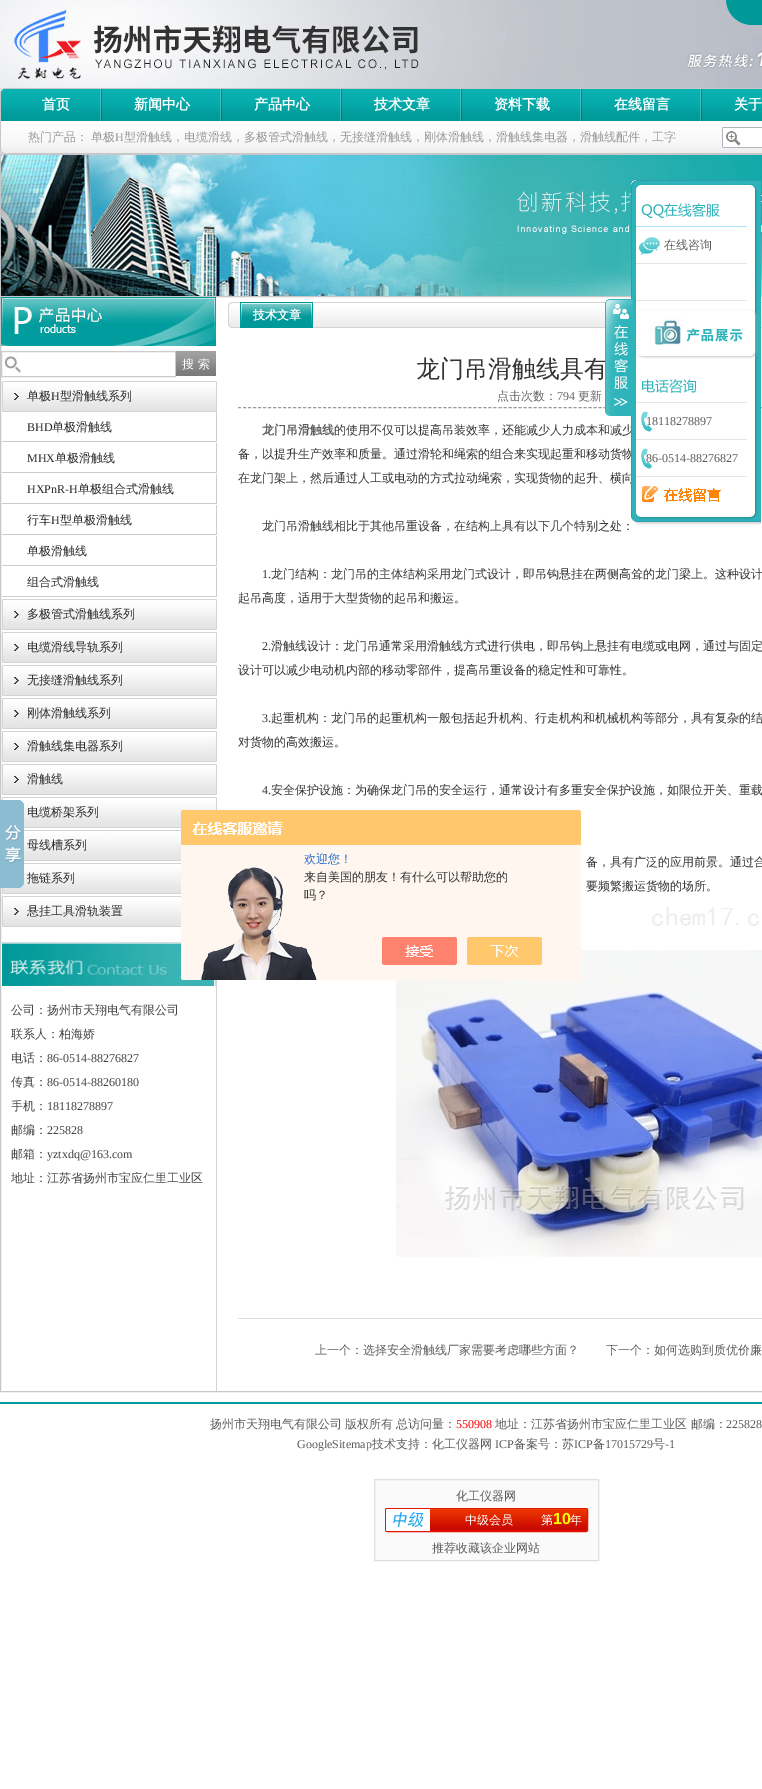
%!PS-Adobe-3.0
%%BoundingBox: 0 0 762 1789
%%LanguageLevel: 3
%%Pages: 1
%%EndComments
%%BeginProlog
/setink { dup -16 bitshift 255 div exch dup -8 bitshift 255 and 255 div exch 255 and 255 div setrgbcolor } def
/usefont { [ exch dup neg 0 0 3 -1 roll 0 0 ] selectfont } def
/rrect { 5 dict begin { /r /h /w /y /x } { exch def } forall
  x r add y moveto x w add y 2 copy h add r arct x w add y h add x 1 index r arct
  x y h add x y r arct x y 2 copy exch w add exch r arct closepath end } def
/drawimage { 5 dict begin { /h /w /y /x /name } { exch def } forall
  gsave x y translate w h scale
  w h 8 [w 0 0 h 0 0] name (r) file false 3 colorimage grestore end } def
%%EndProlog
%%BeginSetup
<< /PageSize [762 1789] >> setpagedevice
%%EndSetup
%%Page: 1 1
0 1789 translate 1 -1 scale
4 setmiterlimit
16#FFFFFF setink
0 0 762 1789 rectfill
(img1.raw) 0 0 762 88 drawimage
(img2.raw) 726 0 36 25 drawimage
(img3.raw) 4 88 758 66 drawimage
(img4.raw) 0 88 4 66 drawimage
(img5.raw) 100 89 2 32 drawimage
/WenQuanYiZenHei-Bold 14 usefont
42 109 moveto (首页) show
(img5.raw) 220 89 2 32 drawimage
134 109 moveto (新闻中心) show
(img5.raw) 340 89 2 32 drawimage
254 109 moveto (产品中心) show
(img5.raw) 460 89 2 32 drawimage
374 109 moveto (技术文章) show
(img5.raw) 580 89 2 32 drawimage
494 109 moveto (资料下载) show
(img5.raw) 700 89 2 32 drawimage
614 109 moveto (在线留言) show
734 109 moveto (关于) show
/WenQuanYiZenHei-Medium 12 usefont
16#999999 setink
28 141 moveto (热门产品：) show
91 141 moveto (单极) show
/LiberationSerif-Regular 12 usefont
115 141 moveto (H) show
/WenQuanYiZenHei-Medium 12 usefont
124 141 moveto (型滑触线，电缆滑线，多极管式滑触线，无接缝滑触线，刚体滑触线，滑触线集电器，滑触线配件，工字) show
(img6.raw) 722 127 40 21 drawimage
(img7.raw) 0 154 762 142 drawimage
16#D4D2D3 setink
216 980 1 412 rectfill
16#C7C7C7 setink
0.5 296.5 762 1095 rectstroke
(img25.raw) 228 302 534 26 drawimage
16#999999 setink
[3 2.01] 0 setdash
238 407.5 moveto 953 407.5 lineto stroke
16#333333 setink
[
    [(的使用不仅可以提高吊装效率，还能减少人力成本和减少) 334 434]
    [(备，以提升生产效率和质量。通过滑轮和绳索的组合来实现起重和移动货物) 238 458]
    [(在龙门架上，然后通过人工或电动的方式拉动绳索，实现货物的起升、横向) 238 482]
] { aload pop moveto show } forall
(img11.raw) 631 190 130 323 drawimage
/WenQuanYiZenHei-Medium 24 usefont
416 377 moveto (龙门吊滑触线具有) show
(img8.raw) 605 299 28 117 drawimage
(img9.raw) 631 513 130 12 drawimage
(img10.raw) 631 180 130 10 drawimage
16#ACE5F9 setink
636 226 111 1 rectfill
(img12.raw) 641 203 79 15 drawimage
16#E6E5E4 setink
636 263 111 1 rectfill
(img13.raw) 639 237 21 18 drawimage
/WenQuanYiZenHei-Medium 12 usefont
16#5C5C5C setink
664 249 moveto (在线咨询) show
16#E6E5E4 setink
636 300 111 1 rectfill
(img14.raw) 636 309 122 50 drawimage
636 402 111 1 rectfill
(img15.raw) 642 379 55 14 drawimage
636 439 111 1 rectfill
(img16.raw) 641 411 12 21 drawimage
/LiberationSerif-Regular 12 usefont
16#5C5C5C setink
646 425 moveto (18118278897) show
16#E6E5E4 setink
636 476 111 1 rectfill
(img16.raw) 641 448 12 21 drawimage
16#5C5C5C setink
646 462 moveto (86-0514-88276827) show
(img17.raw) 642 486 79 16 drawimage
(img18.raw) 1 297 215 49 drawimage
(img19.raw) 5 354 16 20 drawimage
16#CCCCCC setink
[] 0 setdash
1.5 351.5 174 25 rectstroke
(img20.raw) 176 351 40 25 drawimage
/WenQuanYiZenHei-Medium 12 usefont
16#FFFFFF setink
182 368 moveto (搜 索) show
(img21.raw) 2 381 215 31 drawimage
16#2D2D2D setink
27 400 moveto (单极) show
/LiberationSerif-Regular 12 usefont
51 400 moveto (H) show
/WenQuanYiZenHei-Medium 12 usefont
60 400 moveto (型滑触线系列) show
16#CCCCCC setink
216 412 1 30 rectfill
2 441 215 1 rectfill
/LiberationSerif-Regular 12 usefont
16#2D2D2D setink
27 431 moveto (BHD) show
/WenQuanYiZenHei-Medium 12 usefont
52 431 moveto (单极滑触线) show
16#CCCCCC setink
216 443 1 30 rectfill
2 472 215 1 rectfill
/LiberationSerif-Regular 12 usefont
16#2D2D2D setink
27 462 moveto (MHX) show
/WenQuanYiZenHei-Medium 12 usefont
55 462 moveto (单极滑触线) show
16#CCCCCC setink
216 474 1 30 rectfill
2 503 215 1 rectfill
/LiberationSerif-Regular 12 usefont
16#2D2D2D setink
27 493 moveto (HXPnR-H) show
/WenQuanYiZenHei-Medium 12 usefont
78 493 moveto (单极组合式滑触线) show
16#CCCCCC setink
216 505 1 30 rectfill
2 534 215 1 rectfill
16#2D2D2D setink
27 524 moveto (行车) show
/LiberationSerif-Regular 12 usefont
51 524 moveto (H) show
/WenQuanYiZenHei-Medium 12 usefont
60 524 moveto (型单极滑触线) show
16#CCCCCC setink
216 536 1 30 rectfill
2 565 215 1 rectfill
16#2D2D2D setink
27 555 moveto (单极滑触线) show
16#CCCCCC setink
216 567 1 30 rectfill
2 596 215 1 rectfill
16#2D2D2D setink
27 586 moveto (组合式滑触线) show
(img21.raw) 2 599 215 31 drawimage
27 618 moveto (多极管式滑触线系列) show
(img21.raw) 2 632 215 31 drawimage
27 651 moveto (电缆滑线导轨系列) show
(img21.raw) 2 665 215 31 drawimage
27 684 moveto (无接缝滑触线系列) show
(img21.raw) 2 698 215 31 drawimage
27 717 moveto (刚体滑触线系列) show
(img21.raw) 2 731 215 31 drawimage
27 750 moveto (滑触线集电器系列) show
(img21.raw) 2 764 215 31 drawimage
27 783 moveto (滑触线) show
(img21.raw) 2 797 215 31 drawimage
27 816 moveto (电缆桥架系列) show
(img22.raw) 24 830 157 31 drawimage
27 849 moveto (母线槽系列) show
(img23.raw) 2 863 179 31 drawimage
27 882 moveto (拖链系列) show
(img23.raw) 2 896 179 31 drawimage
27 915 moveto (悬挂工具滑轨装置) show
(img24.raw) 1 942 215 44 drawimage
16#444444 setink
[
    [(公司：扬州市天翔电气有限公司) 11 1014]
    [(联系人：柏海娇) 11 1038]
    [(电话：) 11 1062]
] { aload pop moveto show } forall
/LiberationSerif-Regular 12 usefont
47 1062 moveto (86-0514-88276827) show
/WenQuanYiZenHei-Medium 12 usefont
11 1086 moveto (传真：) show
/LiberationSerif-Regular 12 usefont
47 1086 moveto (86-0514-88260180) show
/WenQuanYiZenHei-Medium 12 usefont
11 1110 moveto (手机：) show
/LiberationSerif-Regular 12 usefont
47 1110 moveto (18118278897) show
/WenQuanYiZenHei-Medium 12 usefont
11 1134 moveto (邮编：) show
/LiberationSerif-Regular 12 usefont
47 1134 moveto (225828) show
/WenQuanYiZenHei-Medium 12 usefont
11 1158 moveto (邮箱：) show
/LiberationSerif-Regular 12 usefont
47 1158 moveto (yztxdq@163.com) show
/WenQuanYiZenHei-Medium 12 usefont
11 1182 moveto (地址：江苏省扬州市宝应仁里工业区) show
(img26.raw) 240 302 73 26 drawimage
/WenQuanYiZenHei-Bold 12 usefont
16#FFFFFF setink
253 319 moveto (技术文章) show
/WenQuanYiZenHei-Medium 12 usefont
16#666666 setink
497 400 moveto (点击次数：) show
/LiberationSerif-Regular 12 usefont
557 400 moveto (794) show
/WenQuanYiZenHei-Medium 12 usefont
578 400 moveto (更新) show
/WenQuanYiZenHei-Bold 12 usefont
16#5C5C5C setink
262 434 moveto (龙门吊滑触线) show
/WenQuanYiZenHei-Medium 12 usefont
16#333333 setink
262 530 moveto (龙门吊滑触线相比于其他吊重设备，在结构上具有以下几个特别之处：) show
/LiberationSerif-Regular 12 usefont
262 578 moveto (1.) show
/WenQuanYiZenHei-Medium 12 usefont
271 578 moveto (龙门结构：龙门吊的主体结构采用龙门式设计，即吊钩悬挂在两侧高耸的龙门梁上。这种设计) show
238 602 moveto (起吊高度，适用于大型货物的起吊和搬运。) show
/LiberationSerif-Regular 12 usefont
262 650 moveto (2.) show
/WenQuanYiZenHei-Medium 12 usefont
271 650 moveto (滑触线设计：龙门吊通常采用滑触线方式进行供电，即吊钩上悬挂有电缆或电网，通过与固定) show
238 674 moveto (设计可以减少电动机内部的移动零部件，提高吊重设备的稳定性和可靠性。) show
/LiberationSerif-Regular 12 usefont
262 722 moveto (3.) show
/WenQuanYiZenHei-Medium 12 usefont
271 722 moveto (起重机构：龙门吊的起重机构一般包括起升机构、行走机构和机械机构等部分，具有复杂的结) show
238 746 moveto (对货物的高效搬运。) show
/LiberationSerif-Regular 12 usefont
262 794 moveto (4.) show
/WenQuanYiZenHei-Medium 12 usefont
[
    [(安全保护设施：为确保龙门吊的安全运行，通常设计有多重安全保护设施，如限位开关、重载) 271 794]
    [(备，具有广泛的应用前景。通过合) 586 866]
    [(要频繁搬运货物的场所。) 586 890]
] { aload pop moveto show } forall
(img27.raw) 396 907 366 350 drawimage
16#DDDDDD setink
238 1318 524 1 rectfill
16#5C5C5C setink
315 1354 moveto (上一个：选择安全滑触线厂家需要考虑哪些方面？) show
606 1354 moveto (下一个：如何选购到质优价廉) show
16#009999 setink
0 1402 762 2 rectfill
16#5C5C5C setink
210 1428 moveto -1 0 32 (扬州市天翔电气有限公司 版权所有) widthshow
396 1428 moveto (总访问量：) show
/LiberationSerif-Regular 12 usefont
16#FF0000 setink
456 1428 moveto (550908) show
/WenQuanYiZenHei-Medium 12 usefont
16#5C5C5C setink
495 1428 moveto (地址：江苏省扬州市宝应仁里工业区 邮编：) show
/LiberationSerif-Regular 12 usefont
726 1428 moveto (225828) show
297 1448 moveto (GoogleSitemap) show
/WenQuanYiZenHei-Medium 12 usefont
372 1448 moveto (技术支持：化工仪器网) show
/LiberationSerif-Regular 12 usefont
495 1448 moveto (ICP) show
/WenQuanYiZenHei-Medium 12 usefont
514 1448 moveto (备案号：苏) show
/LiberationSerif-Regular 12 usefont
574 1448 moveto (ICP) show
/WenQuanYiZenHei-Medium 12 usefont
593 1448 moveto (备) show
/LiberationSerif-Regular 12 usefont
605 1448 moveto (17015729) show
/WenQuanYiZenHei-Medium 12 usefont
653 1448 moveto (号) show
/LiberationSerif-Regular 12 usefont
665 1448 moveto (-1) show
16#FAFAFA setink
374.5 1479.5 moveto 598.5 1479.5 lineto 598.5 1560.5 lineto 374.5 1560.5 lineto closepath gsave fill grestore
16#DFDFDF setink
stroke
/WenQuanYiZenHei-Medium 12 usefont
16#5C5C5C setink
456 1500 moveto (化工仪器网) show
(img28.raw) 385 1509 203 22 drawimage
16#DF1700 setink
385.5 1508.5 202 23 1.5 rrect stroke
16#FFFFFF setink
387 1509 moveto 430 1509 lineto 430 1531 lineto 387 1531 lineto 386.5 1531 386 1530.5 386 1530 curveto 386 1510 lineto 386 1509.5 386.5 1509 387 1509 curveto closepath fill
(img29.raw) 393 1512 31 16 drawimage
465 1524 moveto (中级会员) show
541 1524 moveto (第) show
/LiberationSans-Bold 16 usefont
16#FCFF00 setink
553 1524 moveto (10) show
/WenQuanYiZenHei-Medium 12 usefont
16#FFFFFF setink
570 1524 moveto (年) show
16#5C5C5C setink
432 1552 moveto (推荐收藏该企业网站) show
(img30.raw) 0 800 24 88 drawimage
(img31.raw) 181 810 400 170 drawimage
16#2E6EC6 setink
304 863 moveto (欢迎您！) show
16#333333 setink
304 881 moveto (来自美国的朋友！有什么可以帮助您的) show
304 899 moveto (吗？) show
showpage
%%EOF
